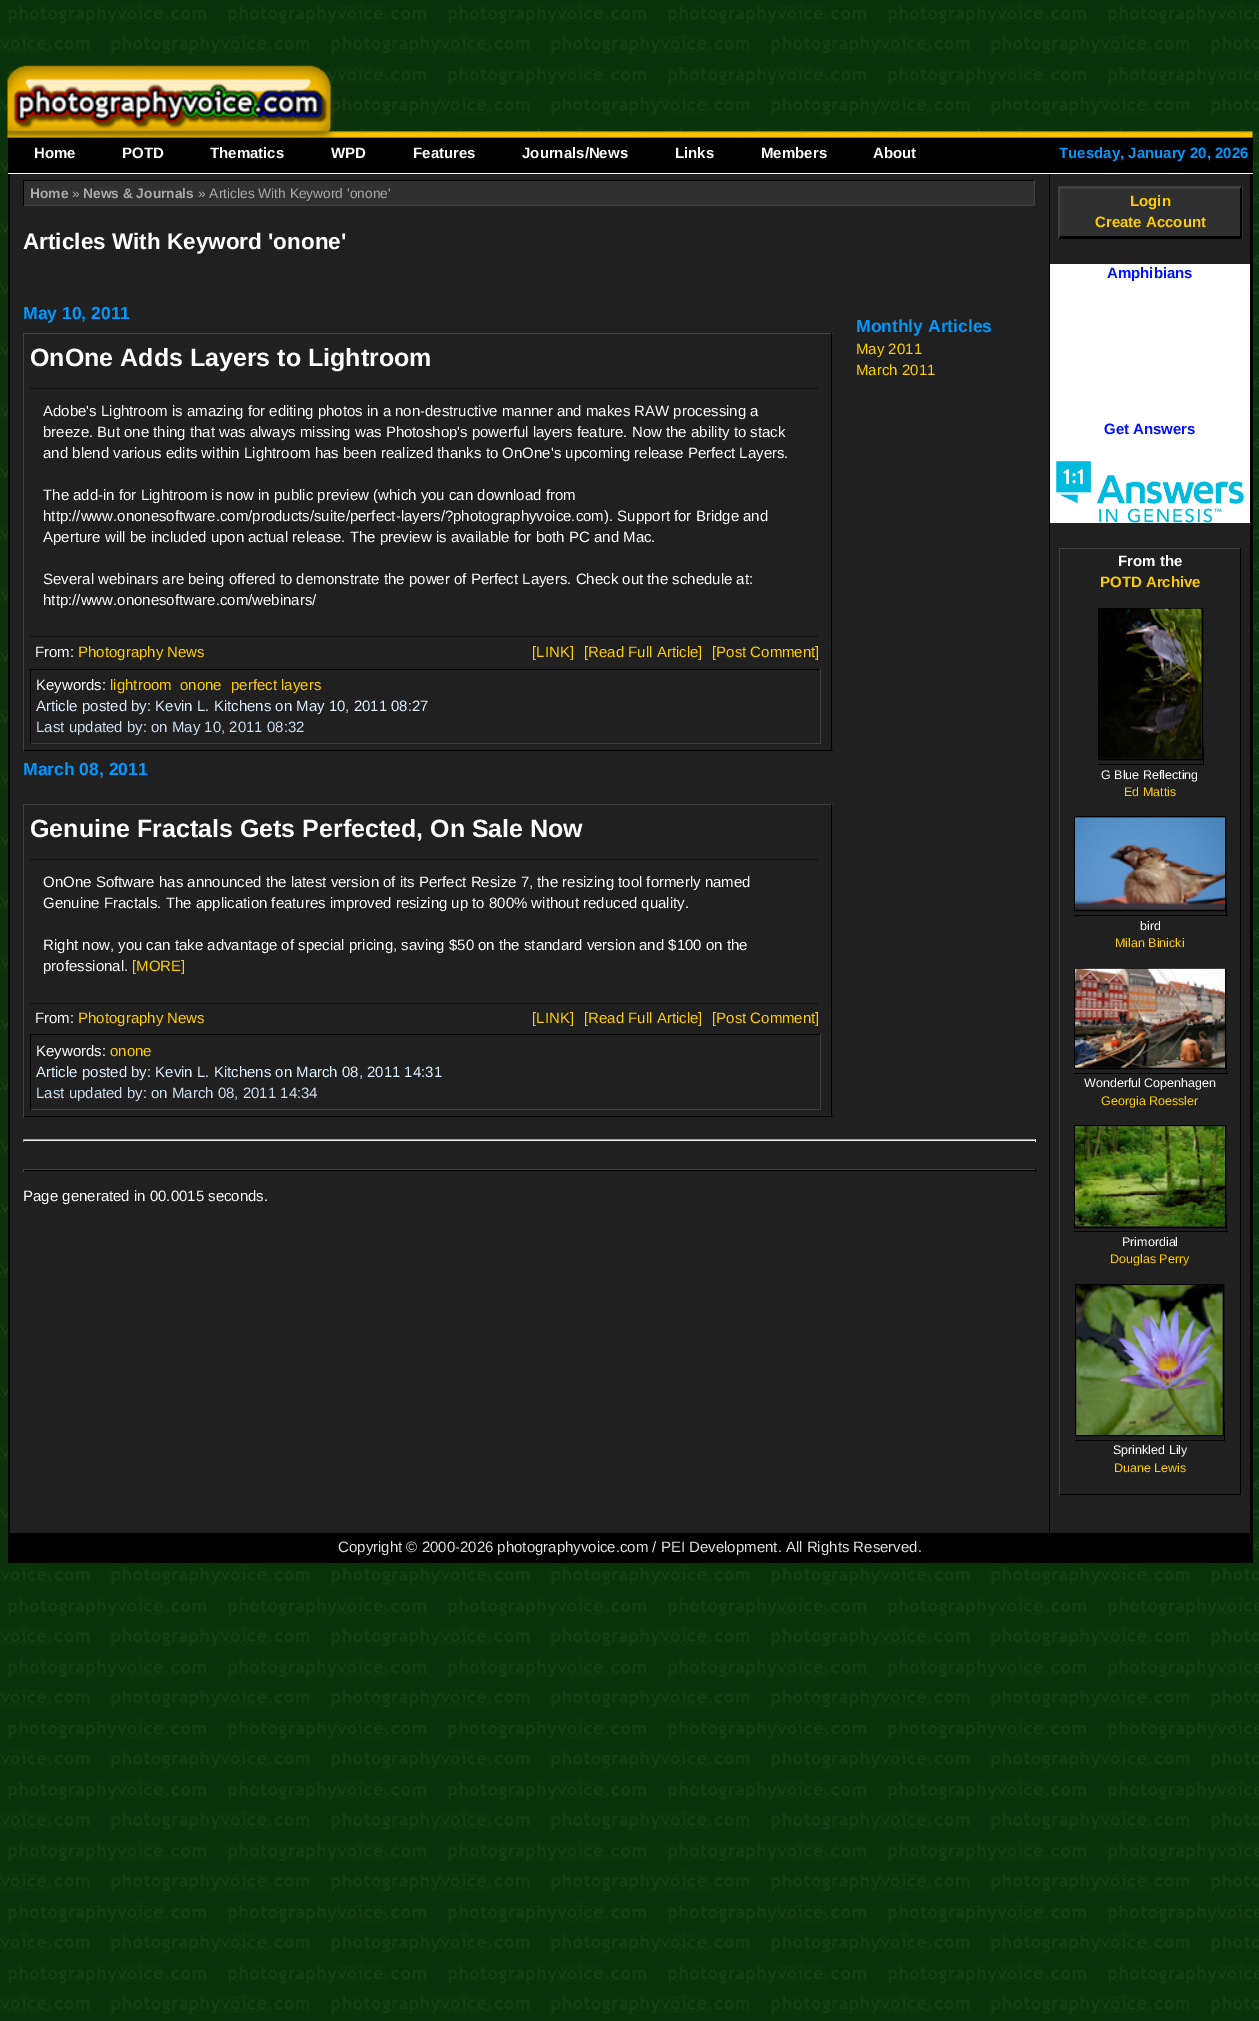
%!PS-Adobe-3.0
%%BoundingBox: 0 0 1259 2021
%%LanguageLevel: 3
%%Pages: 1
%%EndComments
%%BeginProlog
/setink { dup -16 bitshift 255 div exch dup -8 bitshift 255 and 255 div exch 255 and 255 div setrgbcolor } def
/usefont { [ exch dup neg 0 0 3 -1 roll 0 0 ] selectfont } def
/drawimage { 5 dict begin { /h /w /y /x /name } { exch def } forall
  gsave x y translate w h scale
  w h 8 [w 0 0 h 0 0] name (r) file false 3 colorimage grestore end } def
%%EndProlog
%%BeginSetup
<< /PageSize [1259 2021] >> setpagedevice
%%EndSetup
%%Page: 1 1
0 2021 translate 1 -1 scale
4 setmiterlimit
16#FFFFFF setink
0 0 1259 2021 rectfill
(img1.raw) 0 0 1259 2021 drawimage
(img2.raw) 7 65 1246 73 drawimage
16#000000 setink
8 138 1245 35 rectfill
16#FFFFFF setink
8 173 1245 1 rectfill
/LiberationSans-Bold 15 usefont
[
    [(Home) 34 158]
    [(POTD) 122 158]
    [(Thematics) 210 158]
    [(WPD) 331 158]
    [(Features) 413 158]
    [(Journals/News) 522 158]
    [(Links) 675 158]
    [(Members) 761 158]
    [(About) 873 158]
] { aload pop moveto show } forall
16#0099FF setink
1059 158 moveto (Tuesday, January 20, 2026) show
[
    [8 174 1245 1389 16#000000]
    [10 174 1039 1359 16#202020]
    [24 181 1010 24 16#303030]
    [23 180 1012 1 16#000000]
    [1034 180 1 26 16#404040]
    [23 205 1012 1 16#404040]
    [23 180 1 26 16#000000]
] { aload pop setink rectfill } forall
/LiberationSans-Bold 13.75 usefont
16#AAAAAA setink
30 198 moveto (Home) show
/LiberationSans-Regular 13.75 usefont
72 198 moveto (») show
/LiberationSans-Bold 13.75 usefont
83 198 moveto (News & Journals) show
/LiberationSans-Regular 13.75 usefont
198 198 moveto (» Articles With Keyword 'onone') show
/LiberationSans-Bold 22.5 usefont
16#FFFFFF setink
23 249 moveto (Articles With Keyword 'onone') show
/LiberationSans-Bold 17.5 usefont
16#0099FF setink
23 319 moveto (May 10, 2011) show
[
    [23 333 810 1 16#404040]
    [831 333 1 418 16#000000]
    [23 750 810 1 16#000000]
    [23 333 1 418 16#404040]
] { aload pop setink rectfill } forall
/LiberationSans-Bold 25 usefont
16#FFFFFF setink
30 366 moveto (OnOne Adds Layers to Lightroom) show
16#101010 setink
30 388 788 1 rectfill
30 636 788 1 rectfill
/LiberationSans-Regular 15 usefont
16#FFFFFF setink
[
    [(Adobe's Lightroom is amazing for editing photos in a non-destructive manner and makes RAW processing a) 43 416]
    [(breeze. But one thing that was always missing was Photoshop's powerful layers feature. Now the ability to stack) 43 437]
    [(and blend various edits within Lightroom has been realized thanks to OnOne's upcoming release Perfect Layers.) 43 458]
    [(The add-in for Lightroom is now in public preview \(which you can download from) 43 500]
    [(http://www.ononesoftware.com/products/suite/perfect-layers/?photographyvoice.com\). Support for Bridge and) 43 521]
    [(Aperture will be included upon actual release. The preview is available for both PC and Mac.) 43 542]
    [(Several webinars are being offered to demonstrate the power of Perfect Layers. Check out the schedule at:) 43 584]
    [(http://www.ononesoftware.com/webinars/) 43 605]
    [(From:) 35 657]
] { aload pop moveto show } forall
16#FFCC00 setink
[
    [(Photography News) 78 657]
    [([LINK]) 532 657]
    [([Read Full Article]) 584 657]
    [([Post Comment]) 712 657]
] { aload pop moveto show } forall
[
    [30 669 791 1 16#000000]
    [820 669 1 75 16#404040]
    [30 743 791 1 16#404040]
    [30 669 1 75 16#000000]
] { aload pop setink rectfill } forall
16#FFFFFF setink
36 690 moveto (Keywords:) show
16#FFCC00 setink
[
    [(lightroom) 110 690]
    [(onone) 180 690]
    [(perfect layers) 231 690]
] { aload pop moveto show } forall
16#DDEEFF setink
36 711 moveto (Article posted by: Kevin L. Kitchens on May 10, 2011 08:27) show
16#CCDDEE setink
36 732 moveto (Last updated by: on May 10, 2011 08:32) show
/LiberationSans-Bold 17.5 usefont
16#0099FF setink
23 775 moveto (March 08, 2011) show
[
    [23 804 810 1 16#404040]
    [831 804 1 314 16#000000]
    [23 1116 810 1 16#000000]
    [23 804 1 314 16#404040]
] { aload pop setink rectfill } forall
/LiberationSans-Bold 25 usefont
16#FFFFFF setink
30 837 moveto (Genuine Fractals Gets Perfected, On Sale Now) show
16#101010 setink
30 859 788 1 rectfill
30 1003 788 1 rectfill
/LiberationSans-Regular 15 usefont
16#FFFFFF setink
[
    [(OnOne Software has announced the latest version of its Perfect Resize 7, the resizing tool formerly named) 43 887]
    [(Genuine Fractals. The application features improved resizing up to 800% without reduced quality.) 43 908]
    [(Right now, you can take advantage of special pricing, saving $50 on the standard version and $100 on the) 43 950]
    [(professional.) 43 971]
] { aload pop moveto show } forall
16#FFCC00 setink
132 971 moveto ([MORE]) show
16#FFFFFF setink
35 1023 moveto (From:) show
16#FFCC00 setink
[
    [(Photography News) 78 1023]
    [([LINK]) 532 1023]
    [([Read Full Article]) 584 1023]
    [([Post Comment]) 712 1023]
] { aload pop moveto show } forall
[
    [30 1034 791 1 16#000000]
    [820 1034 1 76 16#404040]
    [30 1109 791 1 16#404040]
    [30 1034 1 76 16#000000]
] { aload pop setink rectfill } forall
16#FFFFFF setink
36 1056 moveto (Keywords:) show
16#FFCC00 setink
110 1056 moveto (onone) show
16#DDEEFF setink
36 1077 moveto (Article posted by: Kevin L. Kitchens on March 08, 2011 14:31) show
16#CCDDEE setink
36 1098 moveto (Last updated by: on March 08, 2011 14:34) show
/LiberationSans-Bold 17.5 usefont
16#0099FF setink
856 332 moveto (Monthly Articles) show
/LiberationSans-Regular 15 usefont
16#FFCC00 setink
856 354 moveto (May 2011) show
856 375 moveto (March 2011) show
[
    [23 1139 1013 1 16#9F9F9F]
    [1035 1139 1 3 16#EEEEEE]
    [23 1140 1013 1 16#EEEEEE]
    [23 1139 1 3 16#9F9F9F]
    [23 1169 1013 1 16#404040]
    [1035 1169 1 3 16#000000]
    [23 1170 1013 1 16#000000]
    [23 1169 1 3 16#404040]
] { aload pop setink rectfill } forall
16#FFFFFF setink
23 1201 moveto (Page generated in 00.0015 seconds.) show
16#202020 setink
1050 174 200 1359 rectfill
16#303030 setink
1058 186 185 53 rectfill
16#404040 setink
1058 186 moveto 1242 186 lineto 1240 189 lineto 1060 189 lineto closepath fill
16#000000 setink
1242 186 moveto 1242 239 lineto 1240 236 lineto 1240 189 lineto closepath fill
1242 239 moveto 1058 239 lineto 1060 236 lineto 1240 236 lineto closepath fill
16#404040 setink
1058 239 moveto 1058 186 lineto 1060 189 lineto 1060 236 lineto closepath fill
/LiberationSans-Bold 15 usefont
16#FFCC00 setink
1130 206 moveto (Login) show
1095 227 moveto (Create Account) show
16#FFFFFF setink
1050 264 200 259 rectfill
16#0011FF setink
1107 278 moveto (Amphibians) show
1104 434 moveto (Get Answers) show
(img3.raw) 1056 461 188 62 drawimage
[
    [1059 548 182 1 16#404040]
    [1240 548 1 947 16#000000]
    [1059 1494 182 1 16#000000]
    [1059 548 1 947 16#404040]
] { aload pop setink rectfill } forall
16#FFFFFF setink
1118 566 moveto (From the) show
16#FFCC00 setink
1100 587 moveto (POTD Archive) show
16#000000 setink
1098.5 608.5 104 151 rectstroke
(img4.raw) 1099 608 103 151 drawimage
1203 746 1 19 rectfill
1098 764 106 1 rectfill
/LiberationSans-Regular 12.5 usefont
16#FFFFFF setink
1101 779 moveto (G Blue Reflecting) show
16#FFCC00 setink
1124 796 moveto (Ed Mattis) show
16#000000 setink
1074.5 816.5 151 94 rectstroke
(img5.raw) 1075 817 150 93 drawimage
1226 898 1 18 rectfill
1074 915 154 1 rectfill
16#FFFFFF setink
1140 930 moveto (bird) show
16#FFCC00 setink
1115 947 moveto (Milan Binicki) show
16#000000 setink
1074.5 968.5 151 100 rectstroke
(img6.raw) 1075 968 150 100 drawimage
1226 1055 1 19 rectfill
1074 1073 154 1 rectfill
16#FFFFFF setink
1084 1087 moveto (Wonderful Copenhagen) show
16#FFCC00 setink
1101 1105 moveto (Georgia Roessler) show
16#000000 setink
1074.5 1125.5 151 102 rectstroke
(img7.raw) 1075 1126 150 101 drawimage
1226 1214 1 19 rectfill
1074 1231 154 1 rectfill
16#FFFFFF setink
1122 1246 moveto (Primordial) show
16#FFCC00 setink
1110 1263 moveto (Douglas Perry) show
16#000000 setink
1075.5 1284.5 148 151 rectstroke
(img8.raw) 1076 1285 147 150 drawimage
1224 1423 1 18 rectfill
1075 1440 150 1 rectfill
16#FFFFFF setink
1113 1454 moveto (Sprinkled Lily) show
16#FFCC00 setink
1114 1472 moveto (Duane Lewis) show
/LiberationSans-Regular 15 usefont
16#E0E0E0 setink
338 1552 moveto (Copyright © 2000-2026 photographyvoice.com / PEI Development. All Rights Reserved.) show
showpage
%%EOF
